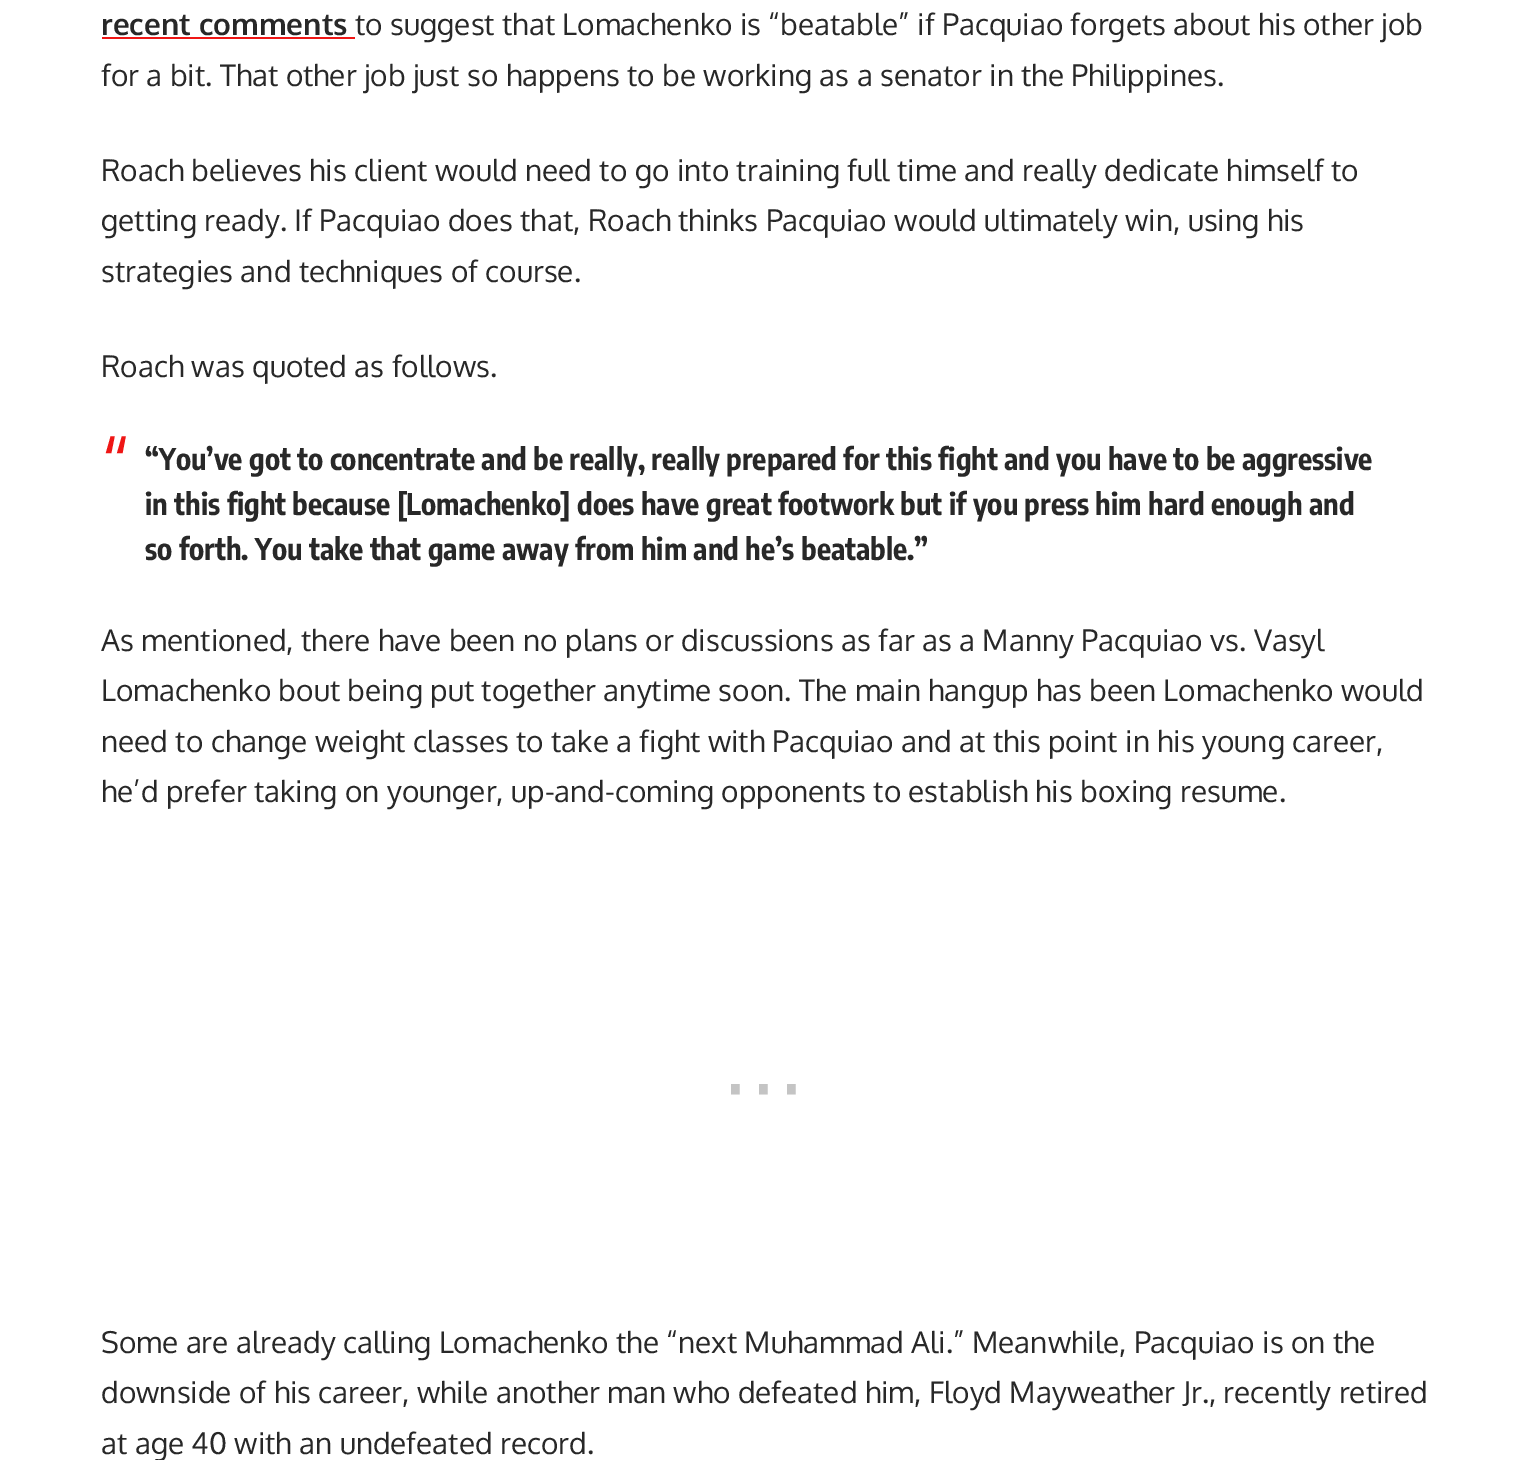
%!PS-Adobe-3.0
%%BoundingBox: 0 0 1531 1460
%%LanguageLevel: 3
%%Pages: 1
%%EndComments
%%BeginProlog
/setink { dup -16 bitshift 255 div exch dup -8 bitshift 255 and 255 div exch 255 and 255 div setrgbcolor } def
/usefont { [ exch dup neg 0 0 3 -1 roll 0 0 ] selectfont } def
%%EndProlog
%%BeginSetup
<< /PageSize [1531 1460] >> setpagedevice
%%EndSetup
%%Page: 1 1
0 1460 translate 1 -1 scale
4 setmiterlimit
16#FFFFFF setink
0 0 1531 1460 rectfill
/Oxygen-Bold 29.75 usefont
16#282828 setink
101 35 moveto (recent comments) show
16#EF1615 setink
102 37 253 2 rectfill
/Oxygen-Regular 29.75 usefont
16#282828 setink
[
    [(to suggest that Lomachenko is “beatable” if Pacquiao forgets about his other job) 355 35]
    [(for a bit. That other job just so happens to be working as a senator in the Philippines.) 101 86]
    [(Roach believes his client would need to go into training full time and really dedicate himself to) 101 181]
    [(getting ready. If Pacquiao does that, Roach thinks Pacquiao would ultimately win, using his) 101 231]
    [(strategies and techniques of course.) 101 282]
    [(Roach was quoted as follows.) 101 377]
] { aload pop moveto show } forall
/Oxygen-Regular 74 usefont
16#EF1615 setink
101 493 moveto (“) show
/EncodeSansCondensed-Bold 29.75 usefont
16#282828 setink
[
    [(“You’ve got to concentrate and be really, really prepared for this fight and you have to be aggressive) 145 470]
    [(in this fight because [Lomachenko] does have great footwork but if you press him hard enough and) 145 515]
    [(so forth. You take that game away from him and he’s beatable.”) 145 560]
] { aload pop moveto show } forall
/Oxygen-Regular 29.75 usefont
[
    [(As mentioned, there have been no plans or discussions as far as a Manny Pacquiao vs. Vasyl) 101 651]
    [(Lomachenko bout being put together anytime soon. The main hangup has been Lomachenko would) 101 701]
    [(need to change weight classes to take a fight with Pacquiao and at this point in his young career,) 101 752]
    [(he’d prefer taking on younger, up-and-coming opponents to establish his boxing resume.) 101 802]
] { aload pop moveto show } forall
/Oxygen-Regular 108 usefont
16#C4C4C4 setink
723 1124 moveto 3.5 0 (···) ashow
/Oxygen-Regular 29.75 usefont
16#282828 setink
[
    [(Some are already calling Lomachenko the “next Muhammad Ali.” Meanwhile, Pacquiao is on the) 101 1353]
    [(downside of his career, while another man who defeated him, Floyd Mayweather Jr., recently retired) 101 1403]
    [(at age 40 with an undefeated record.) 101 1454]
] { aload pop moveto show } forall
showpage
%%EOF
